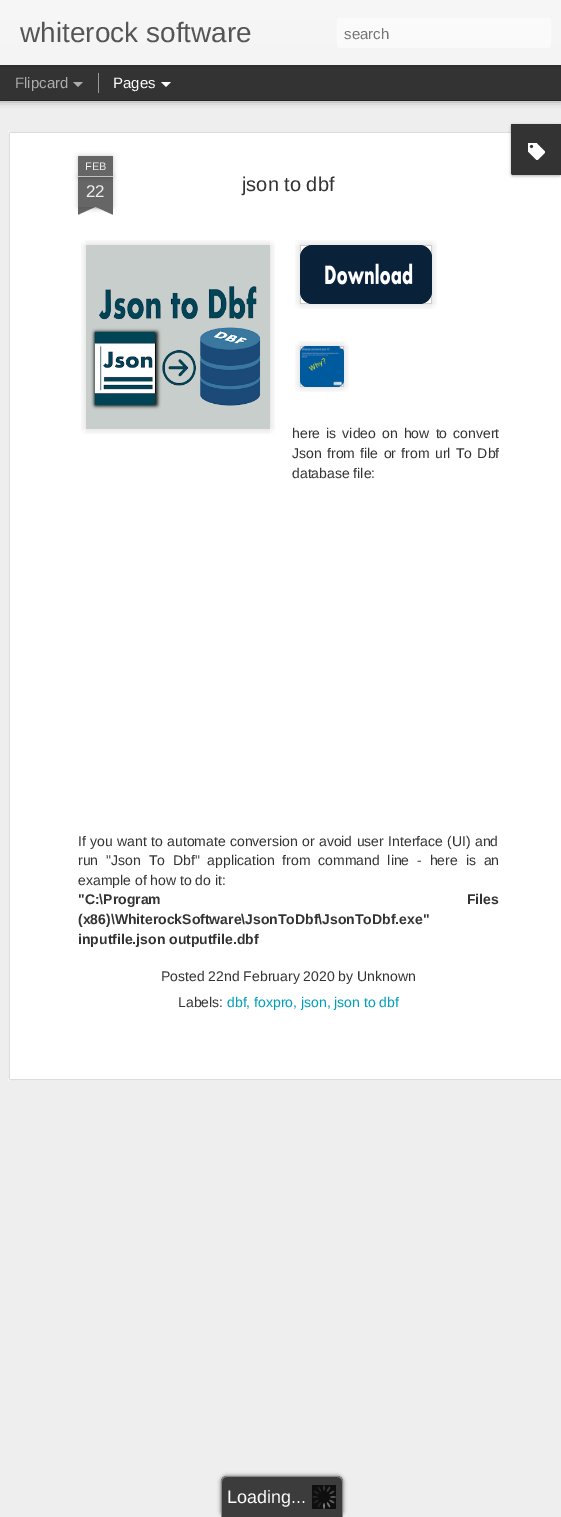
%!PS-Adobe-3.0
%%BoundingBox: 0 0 561 1517
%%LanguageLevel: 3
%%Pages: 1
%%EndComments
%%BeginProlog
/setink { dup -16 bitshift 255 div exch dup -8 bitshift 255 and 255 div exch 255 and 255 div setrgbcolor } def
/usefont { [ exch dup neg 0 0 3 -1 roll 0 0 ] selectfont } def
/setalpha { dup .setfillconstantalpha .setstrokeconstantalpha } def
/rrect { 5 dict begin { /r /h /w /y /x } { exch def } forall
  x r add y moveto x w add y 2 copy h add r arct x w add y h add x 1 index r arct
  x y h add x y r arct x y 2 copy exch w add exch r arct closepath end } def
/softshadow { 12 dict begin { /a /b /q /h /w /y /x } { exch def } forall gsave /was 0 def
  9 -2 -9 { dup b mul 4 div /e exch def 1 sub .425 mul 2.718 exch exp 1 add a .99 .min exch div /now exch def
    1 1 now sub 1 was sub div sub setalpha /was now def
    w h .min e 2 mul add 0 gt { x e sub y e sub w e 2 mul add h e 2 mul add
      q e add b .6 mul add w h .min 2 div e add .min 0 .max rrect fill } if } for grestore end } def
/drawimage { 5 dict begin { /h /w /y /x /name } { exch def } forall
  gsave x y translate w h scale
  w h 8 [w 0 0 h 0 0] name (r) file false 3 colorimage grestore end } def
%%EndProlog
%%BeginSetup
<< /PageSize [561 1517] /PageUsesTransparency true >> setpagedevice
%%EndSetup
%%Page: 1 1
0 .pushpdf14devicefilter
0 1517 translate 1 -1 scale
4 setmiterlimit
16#333333 setink
0 0 561 1517 rectfill
16#EEEEEE setink
0 101 561 1416 rectfill
16#000000 setink
0 65 561 35 0 4 0.5 softshadow
16#333333 setink
0 65 561 35 rectfill
16#999999 setink
98 73 1 20 rectfill
16#000000 setink
0 0 561 65 0 2.5 0.3 softshadow
gsave 0 0 moveto 561 0 lineto 561 65 lineto 0 65 lineto closepath clip newpath
<< /ShadingType 2 /ColorSpace /DeviceRGB /Coords [0 0 0 65] /Extend [true true] /Function << /FunctionType 2 /Domain [0 1] /C0 [0.969 0.969 0.969] /C1 [0.957 0.957 0.957] /N 1 >> >> shfill grestore
/LiberationSans-Regular 28 usefont
16#555555 setink
20 42 moveto (whiterock software) show
16#FAFAFA setink
337 18 214 30 3 rrect fill
/LiberationSans-Regular 15 usefont
16#757575 setink
344 39 moveto (search) show
16#ADADAD setink
15 88 moveto (Flipcard) show
73 82 moveto 83 82 lineto 78 87 lineto closepath fill
16#FBFBFB setink
113 88 moveto (Pages) show
16#FFFFFF setink
161 82 moveto 171 82 lineto 166 87 lineto closepath fill
8 131 553 950 rectfill
(img2.raw) 8 131 553 950 drawimage
16#000000 setink
511 125 50 51 2 1.5 0.3 softshadow
16#333333 setink
511 124 moveto 561 124 lineto 561 175 lineto 513 175 lineto 512 175 511 174 511 173 curveto closepath fill
(img1.raw) 528 143 17 17 drawimage
16#000000 setink
78 177 35 30 0 2.5 0.2 softshadow
16#666666 setink
78 177 35 30 rectfill
16#000000 setink
78 156 35 21 1 2.5 0.2 softshadow
16#666666 setink
79 156 moveto 112 156 lineto 112.5 156 113 156.5 113 157 curveto 113 177 lineto 78 177 lineto 78 157 lineto 78 156.5 78.5 156 79 156 curveto closepath fill
16#C2C2C2 setink
78 176 35 1 rectfill
/LiberationSans-Regular 11 usefont
16#EEEEEE setink
85 170 moveto (FEB) show
/LiberationSans-Regular 17 usefont
86 197 moveto (22) show
gsave
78 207 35 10 rectclip
16#000000 setink
69 197 50 10 0 2.5 0.2 softshadow
grestore
gsave
78 207 35 10 rectclip
16#666666 setink
69 208 moveto 115 187 lineto 119 196 lineto 73 217 lineto closepath fill
grestore
gsave
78 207 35 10 rectclip
16#000000 setink
72 197 50 10 0 2.5 0.2 softshadow
grestore
gsave
78 207 35 10 rectclip
16#666666 setink
76 187 moveto 122 208 lineto 118 217 lineto 72 196 lineto closepath fill
grestore
/LiberationSans-Regular 20 usefont
16#333333 setink
242 191 moveto (json to dbf) show
(img3.raw) 81 240 194 194 drawimage
(img4.raw) 95 286 166 120 drawimage
(img5.raw) 295 240 142 69 drawimage
(img6.raw) 300 245 132 59 drawimage
(img7.raw) 295 341 54 51 drawimage
(img8.raw) 300 346 44 41 drawimage
/LiberationSans-Regular 14 usefont
292 438 moveto 2.25 0 32 (here is video on how to convert) widthshow
292 458 moveto 1.5 0 32 (Json from file or from url To Dbf) widthshow
292 478 moveto (database file:) show
78 846 moveto 0.5 0 32 (If you want to automate conversion or avoid user Interface \(UI\) and) widthshow
78 865 moveto 4 0 32 (run "Json To Dbf" application from command line - here is an) widthshow
78 885 moveto (example of how to do it:) show
/LiberationSans-Bold 14 usefont
78 904 moveto 302 0 32 ("C:\\Program Files) widthshow
78 924 moveto (\(x86\)\\WhiterockSoftware\\JsonToDbf\\JsonToDbf.exe") show
78 944 moveto (inputfile.json outputfile.dbf) show
/LiberationSans-Regular 14 usefont
161 981 moveto (Posted 22nd February 2020 by Unknown) show
178 1007 moveto (Labels:) show
16#009EB8 setink
227 1007 moveto (dbf, foxpro, json, json to dbf) show
16#626262 setink
221 1476 122 41 6 2 1 softshadow
16#3C3C3C setink
227 1476 moveto 337 1476 lineto 340.5 1476 343 1478.5 343 1482 curveto 343 1517 lineto 221 1517 lineto 221 1482 lineto 221 1478.5 223.5 1476 227 1476 curveto closepath fill
16#888888 setink
227 1476 moveto 337 1476 lineto 340 1476 343 1479 343 1482 curveto 343 1517 lineto 221 1517 lineto 221 1482 lineto 221 1479 224 1476 227 1476 curveto closepath 227 1477 moveto 337 1477 lineto 340 1477 342 1479 342 1482 curveto 342 1517 lineto 222 1517 lineto 222 1482 lineto 222 1479 224 1477 227 1477 curveto closepath eofill
(img9.raw) 312 1485 24 24 drawimage
/LiberationSans-Regular 18 usefont
16#FBFBFB setink
227 1503 moveto (Loading...) show
.poppdf14devicefilter showpage
%%EOF
